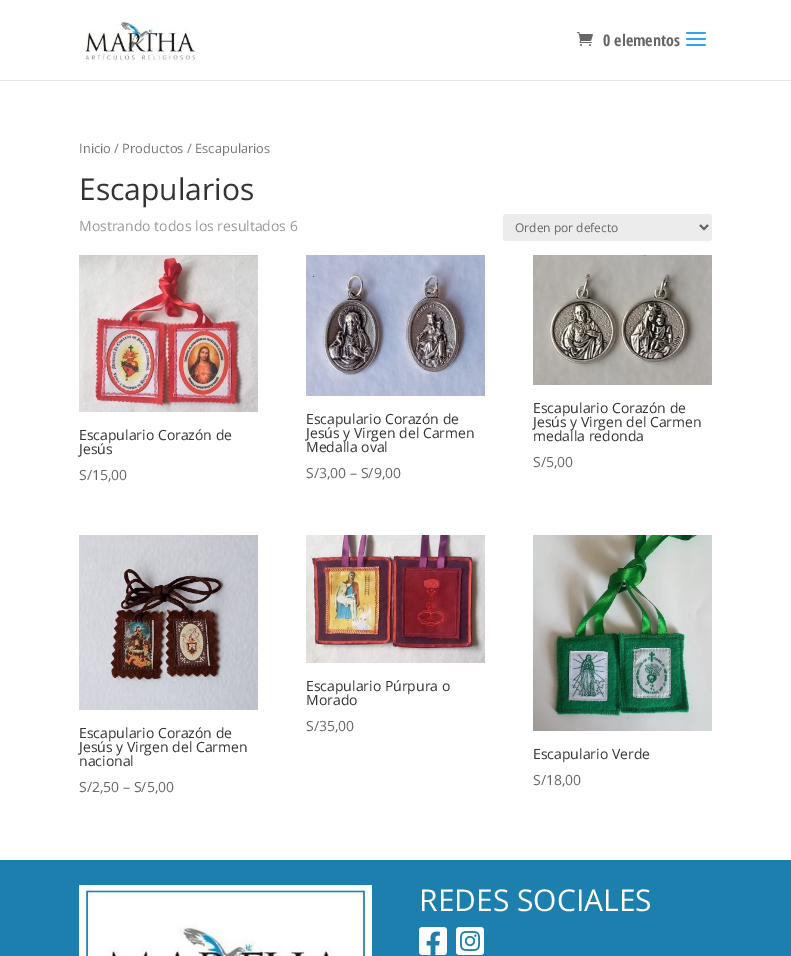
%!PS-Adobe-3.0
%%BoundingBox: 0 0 791 956
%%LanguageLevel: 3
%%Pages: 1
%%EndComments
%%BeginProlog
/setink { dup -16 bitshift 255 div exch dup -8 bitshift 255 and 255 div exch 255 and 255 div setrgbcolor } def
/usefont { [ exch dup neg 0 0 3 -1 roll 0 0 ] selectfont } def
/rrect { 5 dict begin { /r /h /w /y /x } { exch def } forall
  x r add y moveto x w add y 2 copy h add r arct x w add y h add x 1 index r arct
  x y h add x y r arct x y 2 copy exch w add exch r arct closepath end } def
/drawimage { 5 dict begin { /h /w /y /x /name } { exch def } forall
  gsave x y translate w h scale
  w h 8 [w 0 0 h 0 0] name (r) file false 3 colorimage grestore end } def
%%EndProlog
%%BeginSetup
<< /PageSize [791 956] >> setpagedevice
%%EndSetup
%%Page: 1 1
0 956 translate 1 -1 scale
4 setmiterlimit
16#FFFFFF setink
0 0 791 956 rectfill
16#E6E6E6 setink
0 80 791 1 rectfill
(img1.raw) 84 21 112 41 drawimage
(img2.raw) 577 32 16 14 drawimage
/OpenSansCondensed-Bold 16 usefont
16#666666 setink
603 46 moveto (0 elementos) show
(img3.raw) 686 32 20 14 drawimage
/OpenSans-Regular 12.9 usefont
16#767676 setink
79 153 moveto (Inicio / Productos / Escapularios) show
/OpenSans-Regular 30 usefont
16#333333 setink
79 200 moveto (Escapularios) show
/OpenSans-Regular 14 usefont
16#999999 setink
79 231 moveto (Mostrando todos los resultados 6) show
16#ECECEC setink
503 214 209 27 3 rrect fill
16#666666 setink
2 setlinewidth
700 225 moveto 704 229 lineto 708 225 lineto stroke
/OpenSans-Regular 12 usefont
515 232 moveto (Orden por defecto) show
(img4.raw) 79 255 179 157 drawimage
/OpenSans-Regular 14 usefont
16#333333 setink
79 440 moveto (Escapulario Corazón de) show
79 454 moveto (Jesús) show
16#666666 setink
79 480 moveto (S/15,00) show
(img5.raw) 306 255 179 141 drawimage
16#333333 setink
[
    [(Escapulario Corazón de) 306 424]
    [(Jesús y Virgen del Carmen) 306 438]
    [(Medalla oval) 306 452]
] { aload pop moveto show } forall
16#666666 setink
306 478 moveto (S/3,00 – S/9,00) show
(img6.raw) 533 255 179 130 drawimage
16#333333 setink
[
    [(Escapulario Corazón de) 533 413]
    [(Jesús y Virgen del Carmen) 533 427]
    [(medalla redonda) 533 441]
] { aload pop moveto show } forall
16#666666 setink
533 467 moveto (S/5,00) show
(img7.raw) 306 535 179 128 drawimage
16#333333 setink
306 691 moveto (Escapulario Púrpura o) show
306 705 moveto (Morado) show
16#666666 setink
306 731 moveto (S/35,00) show
(img8.raw) 79 535 179 175 drawimage
16#333333 setink
[
    [(Escapulario Corazón de) 79 738]
    [(Jesús y Virgen del Carmen) 79 752]
    [(nacional) 79 766]
] { aload pop moveto show } forall
16#666666 setink
79 792 moveto (S/2,50 – S/5,00) show
(img9.raw) 533 535 179 196 drawimage
16#333333 setink
533 759 moveto (Escapulario Verde) show
16#666666 setink
533 785 moveto (S/18,00) show
16#1D7FAE setink
0 860 791 96 rectfill
(img10.raw) 79 885 293 71 drawimage
/OpenSans-Regular 30 usefont
16#FFFFFF setink
419 911 moveto (REDES SOCIALES) show
(img11.raw) 419 927 28 28 drawimage
(img12.raw) 456 927 28 28 drawimage
showpage
%%EOF
